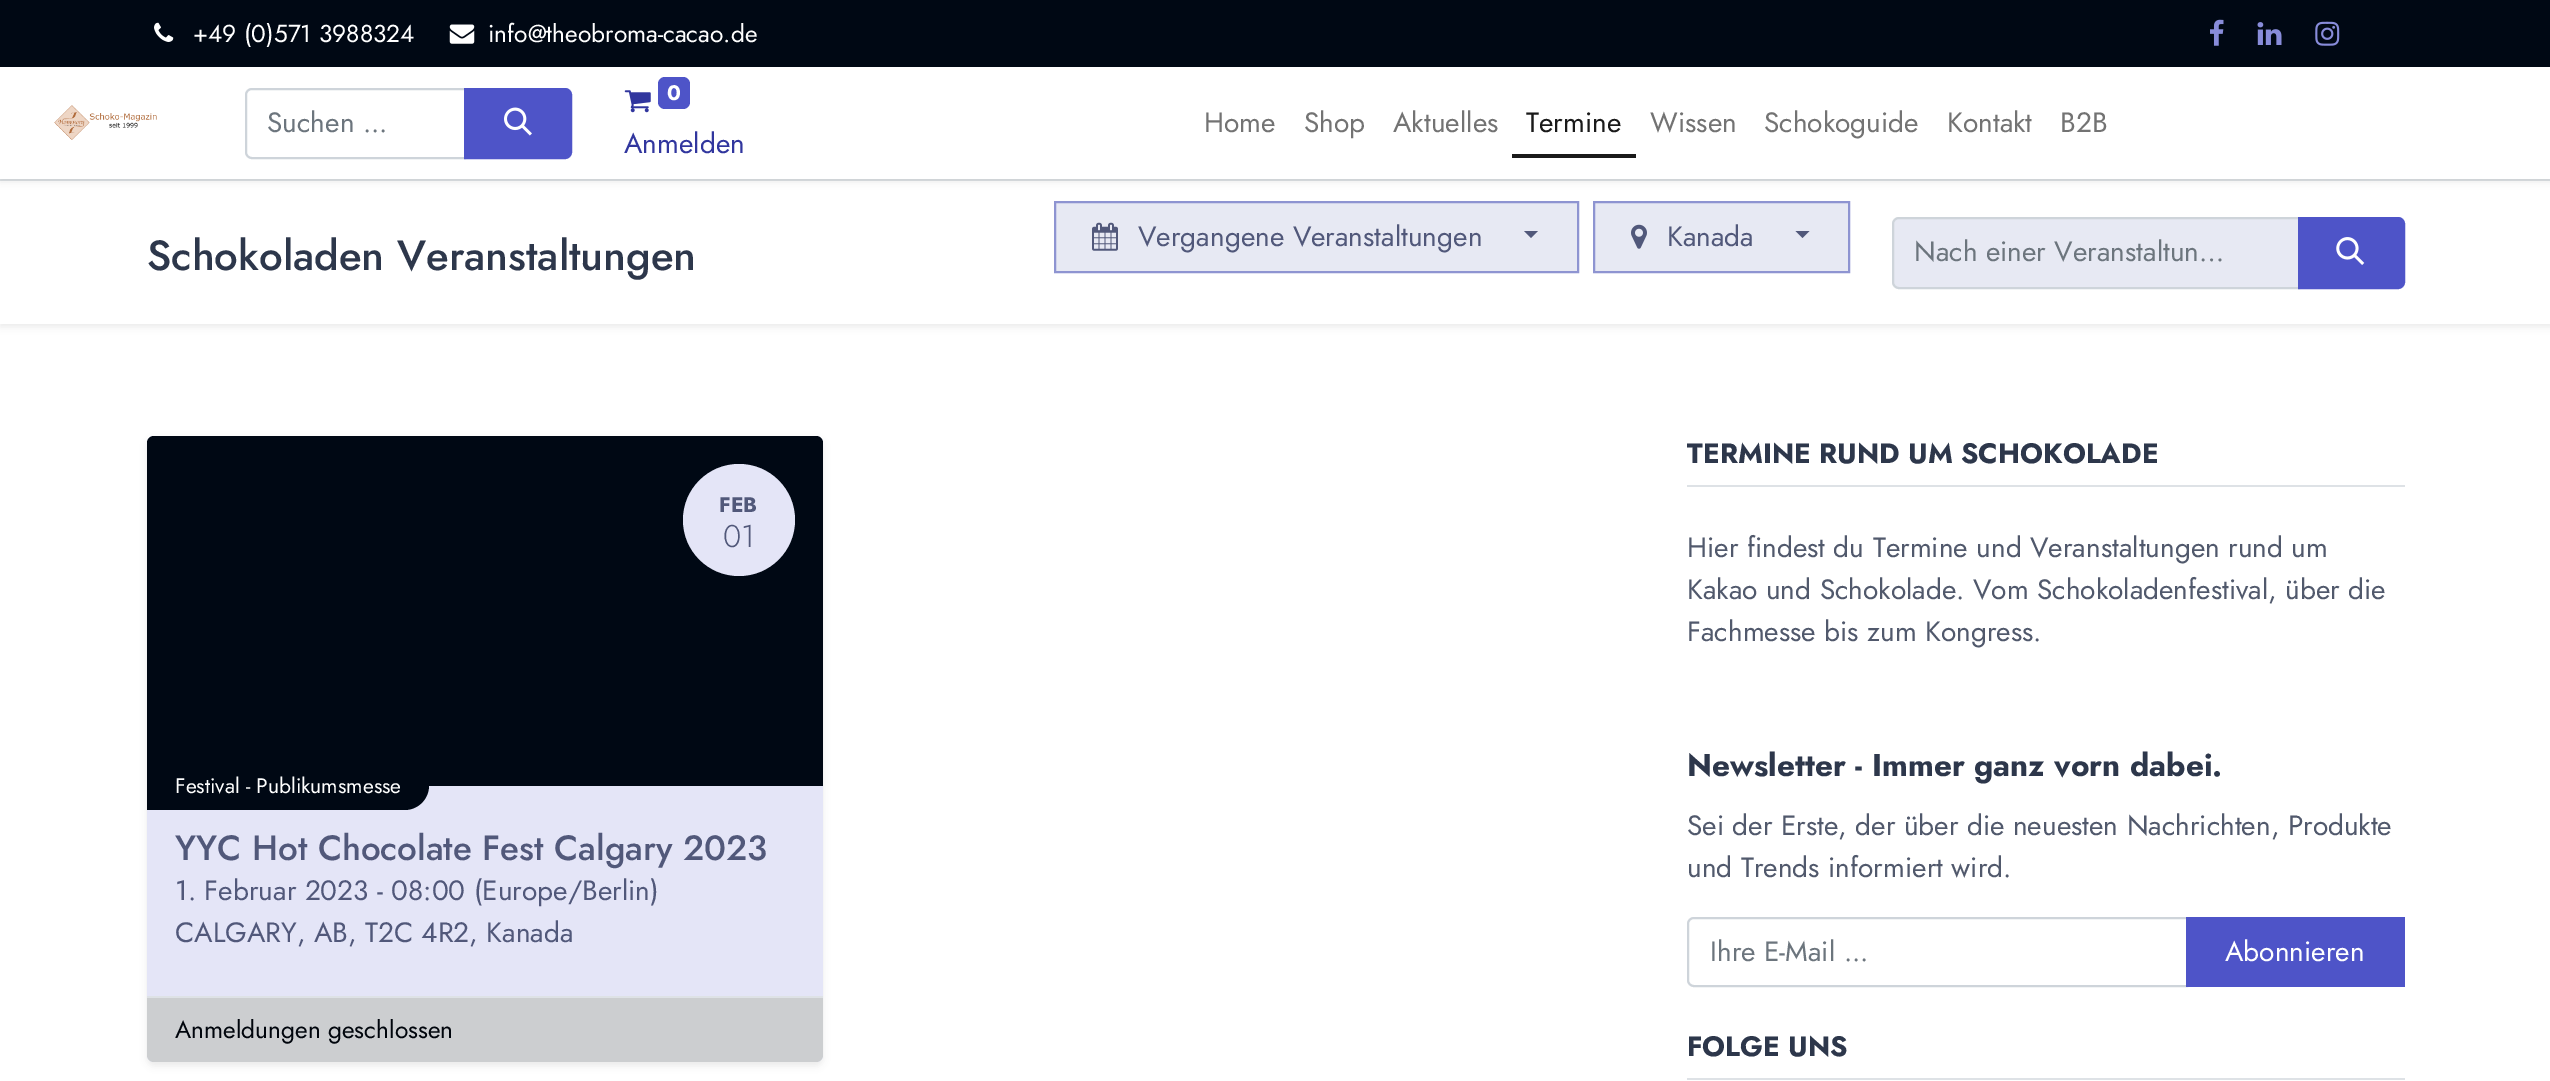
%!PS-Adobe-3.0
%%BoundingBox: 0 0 2550 1081
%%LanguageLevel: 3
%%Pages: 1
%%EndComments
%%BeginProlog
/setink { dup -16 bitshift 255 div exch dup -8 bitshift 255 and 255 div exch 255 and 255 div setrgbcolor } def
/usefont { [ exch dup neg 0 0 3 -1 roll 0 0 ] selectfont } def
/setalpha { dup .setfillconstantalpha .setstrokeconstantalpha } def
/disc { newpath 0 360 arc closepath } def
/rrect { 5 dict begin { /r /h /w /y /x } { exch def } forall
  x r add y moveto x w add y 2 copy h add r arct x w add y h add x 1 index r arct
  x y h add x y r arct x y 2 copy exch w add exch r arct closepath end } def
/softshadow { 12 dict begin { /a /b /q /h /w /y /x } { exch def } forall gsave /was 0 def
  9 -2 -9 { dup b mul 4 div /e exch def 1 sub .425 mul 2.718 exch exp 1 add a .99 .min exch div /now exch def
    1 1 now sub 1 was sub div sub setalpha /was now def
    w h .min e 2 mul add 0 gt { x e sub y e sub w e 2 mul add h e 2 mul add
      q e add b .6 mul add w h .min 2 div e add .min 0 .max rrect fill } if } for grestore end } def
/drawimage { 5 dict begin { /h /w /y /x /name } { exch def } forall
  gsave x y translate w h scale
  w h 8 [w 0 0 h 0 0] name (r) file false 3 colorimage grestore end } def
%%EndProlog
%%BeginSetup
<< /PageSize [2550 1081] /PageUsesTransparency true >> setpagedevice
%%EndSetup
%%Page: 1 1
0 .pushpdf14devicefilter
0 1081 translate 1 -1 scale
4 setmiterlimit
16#FFFFFF setink
0 0 2550 1081 rectfill
16#000814 setink
0 0 2550 67 rectfill
(img1.raw) 154 22 20 20 drawimage
/Jost-Regular 24.5 usefont
16#FFFFFF setink
193 42 moveto (+49 \(0\)571 3988324) show
(img2.raw) 449 24 26 20 drawimage
488 42 moveto (info@theobroma-cacao.de) show
(img3.raw) 2210 19 14 27 drawimage
(img4.raw) 2257 22 25 23 drawimage
(img5.raw) 2315 21 25 25 drawimage
16#000000 setink
0 182 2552 145 0 3.5 0.07 softshadow
16#FFFFFF setink
0 181 2550 143 rectfill
16#DEE2E6 setink
0 179 2550 2 rectfill
16#000000 setink
0 70 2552 112 0 3.5 0.07 softshadow
16#FFFFFF setink
0 67 2550 112 rectfill
(img6.raw) 54 105 103 35 drawimage
16#CED4DA setink
2 setlinewidth
252 89 moveto 465 89 lineto 465 158 lineto 252 158 lineto 248.5 158 246 155.5 246 152 curveto 246 95 lineto 246 91.5 248.5 89 252 89 curveto closepath stroke
/Jost-Regular 28 usefont
16#6C757D setink
267 132 moveto (Suchen ...) show
16#4E54C8 setink
465 89 moveto 565 89 lineto 568.5 89 571 91.5 571 95 curveto 571 152 lineto 571 155.5 568.5 158 565 158 curveto 465 158 lineto closepath gsave fill grestore
stroke
(img7.raw) 504 107 28 29 drawimage
(img8.raw) 624 90 27 23 drawimage
658 77 32 32 7 rrect fill
/Jost-Bold 21 usefont
16#FFFFFF setink
667 100 moveto (0) show
/Jost-Regular 28 usefont
16#31369E setink
624 153 moveto (Anmelden) show
16#737373 setink
[
    [(Home) 1204 132]
    [(Shop) 1304 132]
    [(Aktuelles) 1393 132]
] { aload pop moveto show } forall
16#1A1A1A setink
1526 132 moveto (Termine) show
1512 154 124 4 rectfill
16#737373 setink
[
    [(Wissen) 1650 132]
    [(Schokoguide) 1764 132]
    [(Kontakt) 1947 132]
    [(B2B) 2060 132]
] { aload pop moveto show } forall
/Jost-Medium 42 usefont
16#2D374B setink
147 270 moveto (Schokoladen Veranstaltungen) show
16#E7E9F3 setink
1055 202 moveto 1578 202 lineto 1578 272 lineto 1055 272 lineto closepath gsave fill grestore
16#8E94D1 setink
stroke
(img9.raw) 1092 222 26 29 drawimage
/Jost-Regular 28 usefont
16#51587A setink
1138 246 moveto (Vergangene Veranstaltungen) show
1524 231 moveto 1538 231 lineto 1531 238 lineto closepath fill
16#E7E9F3 setink
1594 202 moveto 1849 202 lineto 1849 272 lineto 1594 272 lineto closepath gsave fill grestore
16#8E94D1 setink
stroke
(img10.raw) 1631 224 16 25 drawimage
16#51587A setink
1667 246 moveto (Kanada) show
1795.5 231 moveto 1809.5 231 lineto 1802.5 238 lineto closepath fill
16#E7E9F3 setink
1899 218 moveto 2299 218 lineto 2299 288 lineto 1899 288 lineto 1895.5 288 1893 285.5 1893 282 curveto 1893 224 lineto 1893 220.5 1895.5 218 1899 218 curveto closepath gsave fill grestore
16#CED4DA setink
stroke
16#6C757D setink
1914 261 moveto (Nach einer Veranstaltun…) show
16#4E54C8 setink
2299 218 moveto 2398 218 lineto 2401.5 218 2404 220.5 2404 224 curveto 2404 282 lineto 2404 285.5 2401.5 288 2398 288 curveto 2299 288 lineto closepath gsave fill grestore
stroke
(img11.raw) 2336 237 29 28 drawimage
16#000000 setink
147 439 676 627 7 3.5 0.07 softshadow
16#E4E5F7 setink
147 436 676 626 7 rrect fill
16#000814 setink
154 436 moveto 816 436 lineto 820 436 823 439 823 443 curveto 823 786 lineto 147 786 lineto 147 443 lineto 147 439 150 436 154 436 curveto closepath fill
16#E4E5F7 setink
739 520 56 disc fill
/Jost-Bold 21 usefont
16#51587A setink
719 512 moveto (FEB) show
/Jost-Light 31.5 usefont
723 547 moveto (01) show
16#000814 setink
147 761 moveto 404.5 761 lineto 418 761 429 772 429 785.5 curveto 429 799 418 810 404.5 810 curveto 147 810 lineto closepath fill
/Jost-Regular 21 usefont
16#FFFFFF setink
175 793 moveto (Festival - Publikumsmesse) show
/Jost-Medium 35 usefont
16#51587A setink
175 860 moveto (YYC Hot Chocolate Fest Calgary 2023) show
/Jost-Regular 28 usefont
175 900 moveto (1. Februar 2023 - 08:00 \(Europe/Berlin\)) show
175 942 moveto (CALGARY, AB, T2C 4R2, Kanada) show
16#CCCED0 setink
147 996 moveto 823 996 lineto 823 1055 lineto 823 1059 820 1062 816 1062 curveto 154 1062 lineto 150 1062 147 1059 147 1055 curveto closepath fill
16#DEE2E6 setink
147 996 676 2 rectfill
/Jost-Regular 24.5 usefont
16#00050C setink
175 1038 moveto (Anmeldungen geschlossen) show
16#DEE2E6 setink
1687 485 718 2 rectfill
/Jost-Bold 28 usefont
16#2D374B setink
1687 463 moveto (TERMINE RUND UM SCHOKOLADE) show
/Jost-Regular 28 usefont
16#51596C setink
[
    [(Hier findest du Termine und Veranstaltungen rund um) 1687 557]
    [(Kakao und Schokolade. Vom Schokoladenfestival, über die) 1687 599]
    [(Fachmesse bis zum Kongress.) 1687 641]
] { aload pop moveto show } forall
/Jost-Bold 31.5 usefont
16#2D374B setink
1687 776 moveto (Newsletter - Immer ganz vorn dabei.) show
/Jost-Regular 28 usefont
16#51596C setink
1687 835 moveto (Sei der Erste, der über die neuesten Nachrichten, Produkte) show
1687 877 moveto (und Trends informiert wird.) show
16#CED4DA setink
1694 918 moveto 2187 918 lineto 2187 986 lineto 1694 986 lineto 1690.5 986 1688 983.5 1688 980 curveto 1688 924 lineto 1688 920.5 1690.5 918 1694 918 curveto closepath stroke
16#6C757D setink
1710 961 moveto (Ihre E-Mail ...) show
16#4E54C8 setink
2186 917 219 70 rectfill
16#FFFFFF setink
2225 961 moveto (Abonnieren) show
16#DEE2E6 setink
1687 1078 718 2 rectfill
/Jost-Bold 28 usefont
16#2D374B setink
1687 1056 moveto (FOLGE UNS) show
.poppdf14devicefilter showpage
%%EOF
